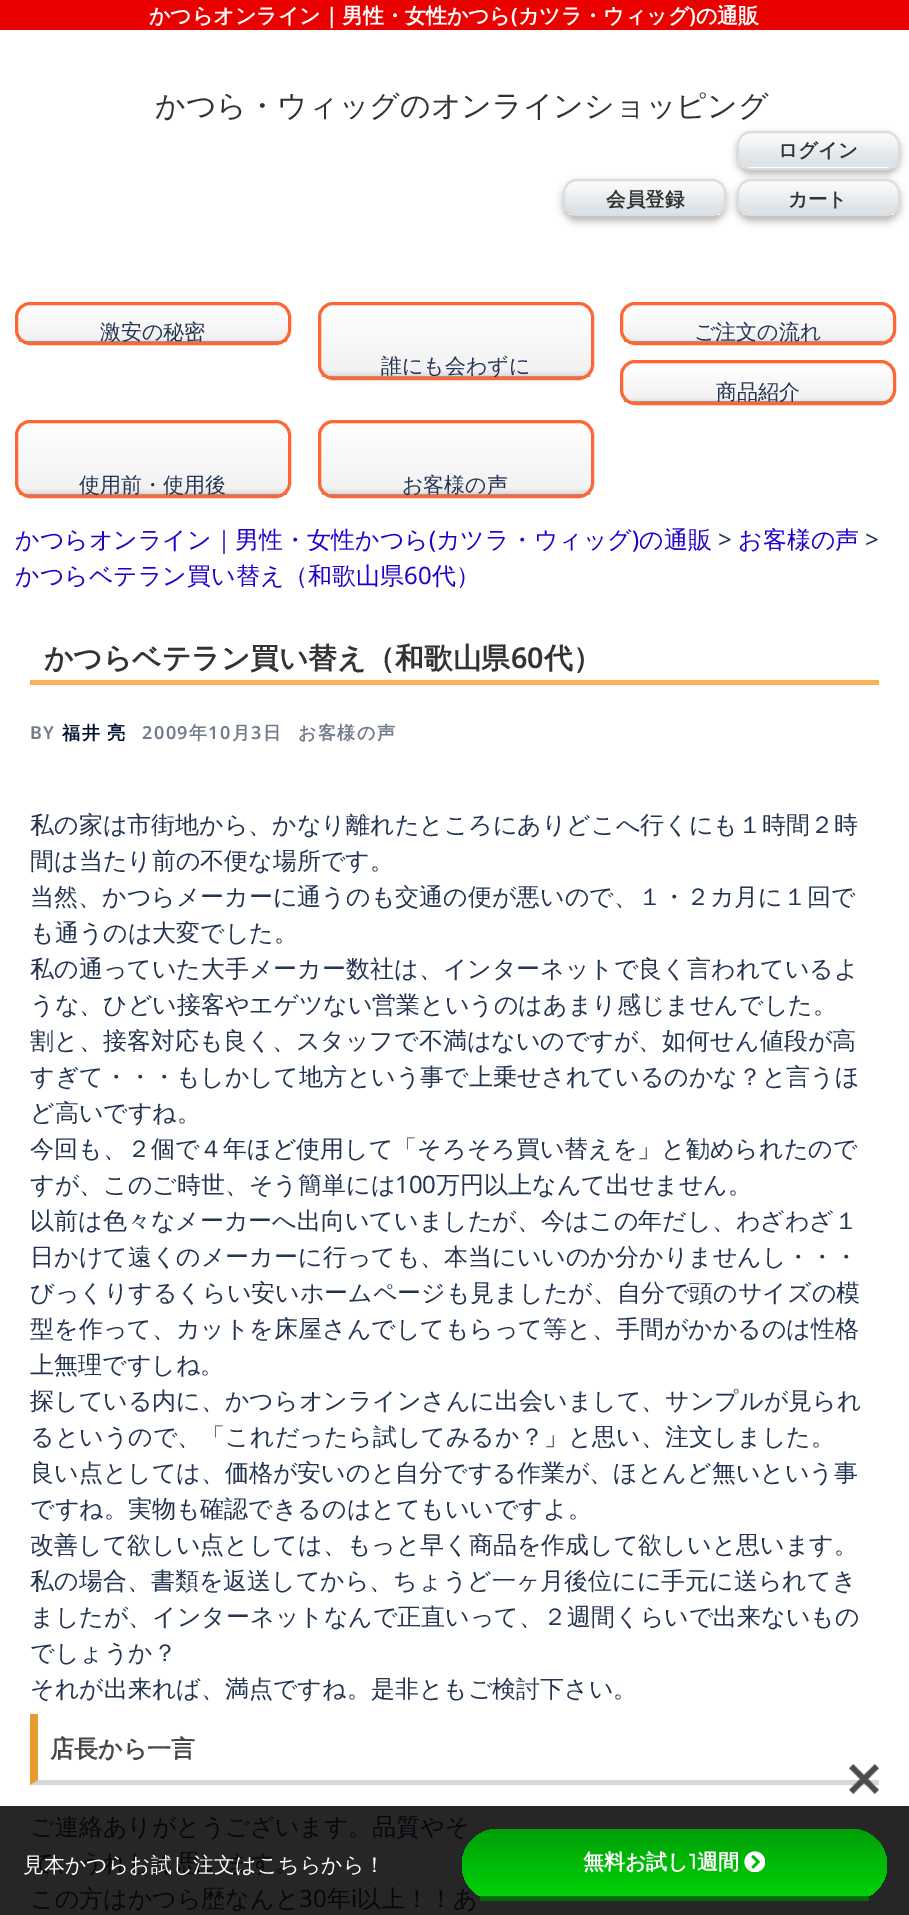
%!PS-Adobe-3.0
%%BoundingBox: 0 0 909 1915
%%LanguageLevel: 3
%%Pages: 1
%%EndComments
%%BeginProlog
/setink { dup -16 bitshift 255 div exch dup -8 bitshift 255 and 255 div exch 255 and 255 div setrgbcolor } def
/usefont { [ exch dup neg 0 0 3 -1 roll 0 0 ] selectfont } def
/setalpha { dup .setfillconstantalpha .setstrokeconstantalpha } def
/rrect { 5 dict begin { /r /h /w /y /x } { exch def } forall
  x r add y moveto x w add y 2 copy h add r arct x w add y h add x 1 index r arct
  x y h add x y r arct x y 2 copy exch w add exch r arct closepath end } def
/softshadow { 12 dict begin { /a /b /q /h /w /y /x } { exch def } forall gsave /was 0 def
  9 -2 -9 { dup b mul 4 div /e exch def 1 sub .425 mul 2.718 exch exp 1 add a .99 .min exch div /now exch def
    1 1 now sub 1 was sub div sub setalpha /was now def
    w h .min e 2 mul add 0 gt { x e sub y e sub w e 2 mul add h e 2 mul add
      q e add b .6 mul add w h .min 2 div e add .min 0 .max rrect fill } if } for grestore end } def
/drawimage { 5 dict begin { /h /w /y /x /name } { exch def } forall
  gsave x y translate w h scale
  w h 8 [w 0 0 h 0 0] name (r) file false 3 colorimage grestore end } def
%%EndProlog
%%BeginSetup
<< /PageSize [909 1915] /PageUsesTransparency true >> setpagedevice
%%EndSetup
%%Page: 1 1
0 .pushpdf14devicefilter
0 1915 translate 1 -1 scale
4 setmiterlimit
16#FFFFFF setink
0 0 909 1915 rectfill
16#262626 setink
0 1806 909 109 rectfill
16#EB0000 setink
0 0 909 30 rectfill
/WenQuanYiZenHei-Bold 21 usefont
16#FFFFFF setink
149 23 moveto (かつらオンライン｜男性・女性かつら) show
/NotoSans-SemiBold 21 usefont
511 23 moveto (\() show
/WenQuanYiZenHei-Bold 21 usefont
518 23 moveto (カツラ・ウィッグ) show
/NotoSans-SemiBold 21 usefont
689 23 moveto (\)) show
/WenQuanYiZenHei-Bold 21 usefont
696 23 moveto (の通販) show
/WenQuanYiZenHei-Medium 30 usefont
16#333333 setink
155 116 moveto (かつら・ウィッグのオンラインショッピング) show
16#000000 setink
737 135 163 39 14 4 0.3 softshadow
gsave
737 131 163 39 14 rrect clip newpath
gsave 737 132 moveto 900 132 lineto 900 168 lineto 737 168 lineto closepath clip newpath
<< /ShadingType 2 /ColorSpace /DeviceRGB /Coords [818 132 818 168] /Extend [true true] /Function << /FunctionType 3 /Domain [0 1] /Functions [<< /FunctionType 2 /Domain [0 1] /C0 [0.973 0.976 0.98] /C1 [0.973 0.976 0.98] /N 1 >> << /FunctionType 2 /Domain [0 1] /C0 [0.973 0.976 0.98] /C1 [0.867 0.89 0.902] /N 1 >> << /FunctionType 2 /Domain [0 1] /C0 [0.867 0.89 0.902] /C1 [0.867 0.89 0.902] /N 1 >> << /FunctionType 2 /Domain [0 1] /C0 [0.867 0.89 0.902] /C1 [1 1 1] /N 1 >>] /Bounds [0.15 0.8 0.98] /Encode [0 1 0 1 0 1 0 1] >> >> shfill grestore
grestore
16#DDDDDD setink
2 setlinewidth
738 132 161 37 13 rrect stroke
/WenQuanYiZenHei-Bold 19.5 usefont
16#333333 setink
778 157 moveto (ログイン) show
16#000000 setink
563 183 163 38 14 4 0.3 softshadow
gsave
563 179 163 37 14 rrect clip newpath
gsave 563 180 moveto 726 180 lineto 726 215 lineto 563 215 lineto closepath clip newpath
<< /ShadingType 2 /ColorSpace /DeviceRGB /Coords [644 180 644 215] /Extend [true true] /Function << /FunctionType 3 /Domain [0 1] /Functions [<< /FunctionType 2 /Domain [0 1] /C0 [0.973 0.976 0.98] /C1 [0.973 0.976 0.98] /N 1 >> << /FunctionType 2 /Domain [0 1] /C0 [0.973 0.976 0.98] /C1 [0.867 0.89 0.902] /N 1 >> << /FunctionType 2 /Domain [0 1] /C0 [0.867 0.89 0.902] /C1 [0.867 0.89 0.902] /N 1 >> << /FunctionType 2 /Domain [0 1] /C0 [0.867 0.89 0.902] /C1 [1 1 1] /N 1 >>] /Bounds [0.15 0.8 0.98] /Encode [0 1 0 1 0 1 0 1] >> >> shfill grestore
grestore
16#DDDDDD setink
564 180 161 35 13 rrect stroke
16#333333 setink
606 206 moveto (会員登録) show
16#000000 setink
737 183 163 38 14 4 0.3 softshadow
gsave
737 179 163 37 14 rrect clip newpath
gsave 737 180 moveto 900 180 lineto 900 215 lineto 737 215 lineto closepath clip newpath
<< /ShadingType 2 /ColorSpace /DeviceRGB /Coords [818 180 818 215] /Extend [true true] /Function << /FunctionType 3 /Domain [0 1] /Functions [<< /FunctionType 2 /Domain [0 1] /C0 [0.973 0.976 0.98] /C1 [0.973 0.976 0.98] /N 1 >> << /FunctionType 2 /Domain [0 1] /C0 [0.973 0.976 0.98] /C1 [0.867 0.89 0.902] /N 1 >> << /FunctionType 2 /Domain [0 1] /C0 [0.867 0.89 0.902] /C1 [0.867 0.89 0.902] /N 1 >> << /FunctionType 2 /Domain [0 1] /C0 [0.867 0.89 0.902] /C1 [1 1 1] /N 1 >>] /Bounds [0.15 0.8 0.98] /Encode [0 1 0 1 0 1 0 1] >> >> shfill grestore
grestore
16#DDDDDD setink
738 180 161 35 13 rrect stroke
16#333333 setink
788 206 moveto (カート) show
gsave
15 302 276 43 15 rrect clip newpath
gsave 15 305 moveto 291 305 lineto 291 342 lineto 15 342 lineto closepath clip newpath
<< /ShadingType 2 /ColorSpace /DeviceRGB /Coords [153 305 153 342] /Extend [true true] /Function << /FunctionType 3 /Domain [0 1] /Functions [<< /FunctionType 2 /Domain [0 1] /C0 [1 1 1] /C1 [0.953 0.949 0.949] /N 1 >> << /FunctionType 2 /Domain [0 1] /C0 [0.953 0.949 0.949] /C1 [0.886 0.871 0.863] /N 1 >> << /FunctionType 2 /Domain [0 1] /C0 [0.886 0.871 0.863] /C1 [0.624 0.588 0.573] /N 1 >>] /Bounds [0.9 0.98] /Encode [0 1 0 1 0 1] >> >> shfill grestore
grestore
16#FF6633 setink
3 setlinewidth
16.5 303.5 273 40 13.5 rrect stroke
/WenQuanYiZenHei-Medium 21 usefont
16#233452 setink
100 339 moveto (激安の秘密) show
gsave
620 302 276 43 15 rrect clip newpath
gsave 620 305 moveto 896 305 lineto 896 342 lineto 620 342 lineto closepath clip newpath
<< /ShadingType 2 /ColorSpace /DeviceRGB /Coords [758 305 758 342] /Extend [true true] /Function << /FunctionType 3 /Domain [0 1] /Functions [<< /FunctionType 2 /Domain [0 1] /C0 [1 1 1] /C1 [0.953 0.949 0.949] /N 1 >> << /FunctionType 2 /Domain [0 1] /C0 [0.953 0.949 0.949] /C1 [0.886 0.871 0.863] /N 1 >> << /FunctionType 2 /Domain [0 1] /C0 [0.886 0.871 0.863] /C1 [0.624 0.588 0.573] /N 1 >>] /Bounds [0.9 0.98] /Encode [0 1 0 1 0 1] >> >> shfill grestore
grestore
16#FF6633 setink
621.5 303.5 273 40 13.5 rrect stroke
16#233452 setink
694 339 moveto (ご注文の流れ) show
gsave
318 302 276 78 15 rrect clip newpath
gsave 318 305 moveto 594 305 lineto 594 377 lineto 318 377 lineto closepath clip newpath
<< /ShadingType 2 /ColorSpace /DeviceRGB /Coords [456 305 456 377] /Extend [true true] /Function << /FunctionType 3 /Domain [0 1] /Functions [<< /FunctionType 2 /Domain [0 1] /C0 [1 1 1] /C1 [0.953 0.949 0.949] /N 1 >> << /FunctionType 2 /Domain [0 1] /C0 [0.953 0.949 0.949] /C1 [0.886 0.871 0.863] /N 1 >> << /FunctionType 2 /Domain [0 1] /C0 [0.886 0.871 0.863] /C1 [0.624 0.588 0.573] /N 1 >>] /Bounds [0.9 0.98] /Encode [0 1 0 1 0 1] >> >> shfill grestore
grestore
16#FF6633 setink
319.5 303.5 273 75 13.5 rrect stroke
16#233452 setink
381 373 moveto (誰にも会わずに) show
gsave
620 360 276 45 15 rrect clip newpath
gsave 620 363 moveto 896 363 lineto 896 402 lineto 620 402 lineto closepath clip newpath
<< /ShadingType 2 /ColorSpace /DeviceRGB /Coords [758 363 758 402] /Extend [true true] /Function << /FunctionType 3 /Domain [0 1] /Functions [<< /FunctionType 2 /Domain [0 1] /C0 [1 1 1] /C1 [0.953 0.949 0.949] /N 1 >> << /FunctionType 2 /Domain [0 1] /C0 [0.953 0.949 0.949] /C1 [0.886 0.871 0.863] /N 1 >> << /FunctionType 2 /Domain [0 1] /C0 [0.886 0.871 0.863] /C1 [0.624 0.588 0.573] /N 1 >>] /Bounds [0.9 0.98] /Encode [0 1 0 1 0 1] >> >> shfill grestore
grestore
16#FF6633 setink
621.5 361.5 273 42 13.5 rrect stroke
16#233452 setink
716 399 moveto (商品紹介) show
gsave
15 420 276 78 15 rrect clip newpath
gsave 15 423 moveto 291 423 lineto 291 495 lineto 15 495 lineto closepath clip newpath
<< /ShadingType 2 /ColorSpace /DeviceRGB /Coords [153 423 153 495] /Extend [true true] /Function << /FunctionType 3 /Domain [0 1] /Functions [<< /FunctionType 2 /Domain [0 1] /C0 [1 1 1] /C1 [0.953 0.949 0.949] /N 1 >> << /FunctionType 2 /Domain [0 1] /C0 [0.953 0.949 0.949] /C1 [0.886 0.871 0.863] /N 1 >> << /FunctionType 2 /Domain [0 1] /C0 [0.886 0.871 0.863] /C1 [0.624 0.588 0.573] /N 1 >>] /Bounds [0.9 0.98] /Encode [0 1 0 1 0 1] >> >> shfill grestore
grestore
16#FF6633 setink
16.5 421.5 273 75 13.5 rrect stroke
16#233452 setink
79 492 moveto (使用前・使用後) show
gsave
318 420 276 78 15 rrect clip newpath
gsave 318 423 moveto 594 423 lineto 594 495 lineto 318 495 lineto closepath clip newpath
<< /ShadingType 2 /ColorSpace /DeviceRGB /Coords [456 423 456 495] /Extend [true true] /Function << /FunctionType 3 /Domain [0 1] /Functions [<< /FunctionType 2 /Domain [0 1] /C0 [1 1 1] /C1 [0.953 0.949 0.949] /N 1 >> << /FunctionType 2 /Domain [0 1] /C0 [0.953 0.949 0.949] /C1 [0.886 0.871 0.863] /N 1 >> << /FunctionType 2 /Domain [0 1] /C0 [0.886 0.871 0.863] /C1 [0.624 0.588 0.573] /N 1 >>] /Bounds [0.9 0.98] /Encode [0 1 0 1 0 1] >> >> shfill grestore
grestore
16#FF6633 setink
319.5 421.5 273 75 13.5 rrect stroke
16#233452 setink
402 492 moveto (お客様の声) show
/WenQuanYiZenHei-Medium 24 usefont
16#2200CC setink
15 548 moveto (かつらオンライン｜男性・女性かつら カツラ・ウィッグ の通販) show
738 548 moveto (お客様の声) show
/NotoSans-Regular 24 usefont
429 548 moveto (\() show
632 548 moveto (\)) show
16#233452 setink
718 548 moveto (>) show
865 548 moveto (>) show
/WenQuanYiZenHei-Medium 24 usefont
16#2200CC setink
15 584 moveto (かつらベテラン買い替え（和歌山県) show
/NotoSans-Regular 24 usefont
404 584 moveto (60) show
/WenQuanYiZenHei-Medium 24 usefont
432 584 moveto (代）) show
16#FFAF58 setink
30 680 849 5 rectfill
/WenQuanYiZenHei-Bold 28.75 usefont
16#333333 setink
44 668 moveto (かつらベテラン買い替え（和歌山県) show
/NotoSans-SemiBold 28.75 usefont
511 668 moveto (60) show
/WenQuanYiZenHei-Bold 28.75 usefont
544 668 moveto (代）) show
/NotoSans-SemiBold 18 usefont
16#737C8C setink
30 739 moveto 1.5 0 (BY) ashow
/WenQuanYiZenHei-Bold 18 usefont
16#00102E setink
62 739 moveto -1 0 32 1.5 0 (福井 亮) awidthshow
/NotoSans-SemiBold 18 usefont
16#737C8C setink
142 739 moveto 1.5 0 (2009) ashow
/WenQuanYiZenHei-Bold 18 usefont
189 739 moveto 1.5 0 (年) ashow
/NotoSans-SemiBold 18 usefont
208 739 moveto 1.5 0 (10) ashow
/WenQuanYiZenHei-Bold 18 usefont
232 739 moveto 1.5 0 (月) ashow
/NotoSans-SemiBold 18 usefont
251 739 moveto 1.5 0 (3) ashow
/WenQuanYiZenHei-Bold 18 usefont
263 739 moveto 1.5 0 (日) ashow
298 739 moveto 1.5 0 (お客様の声) ashow
/WenQuanYiZenHei-Medium 24 usefont
16#233452 setink
[
    [(私の家は市街地から、かなり離れたところにありどこへ行くにも１時間２時) 30 833]
    [(間は当たり前の不便な場所です。) 30 869]
    [(当然、かつらメーカーに通うのも交通の便が悪いので、１・２カ月に１回で) 30 905]
    [(も通うのは大変でした。) 30 941]
    [(私の通っていた大手メーカー数社は、インターネットで良く言われているよ) 30 977]
    [(うな、ひどい接客やエゲツない営業というのはあまり感じませんでした。) 30 1013]
    [(割と、接客対応も良く、スタッフで不満はないのですが、如何せん値段が高) 30 1049]
    [(すぎて・・・もしかして地方という事で上乗せされているのかな？と言うほ) 30 1085]
    [(ど高いですね。) 30 1121]
    [(今回も、２個で４年ほど使用して「そろそろ買い替えを」と勧められたので) 30 1157]
    [(すが、このご時世、そう簡単には) 30 1193]
] { aload pop moveto show } forall
/NotoSans-Regular 24 usefont
395 1193 moveto (100) show
/WenQuanYiZenHei-Medium 24 usefont
[
    [(万円以上なんて出せません。) 436 1193]
    [(以前は色々なメーカーへ出向いていましたが、今はこの年だし、わざわざ１) 30 1229]
    [(日かけて遠くのメーカーに行っても、本当にいいのか分かりませんし・・・) 30 1265]
    [(びっくりするくらい安いホームページも見ましたが、自分で頭のサイズの模) 30 1301]
    [(型を作って、カットを床屋さんでしてもらって等と、手間がかかるのは性格) 30 1337]
    [(上無理ですしね。) 30 1373]
    [(探している内に、かつらオンラインさんに出会いまして、サンプルが見られ) 30 1409]
    [(るというので、「これだったら試してみるか？」と思い、注文しました。) 30 1445]
    [(良い点としては、価格が安いのと自分でする作業が、ほとんど無いという事) 30 1481]
    [(ですね。実物も確認できるのはとてもいいですよ。) 30 1517]
    [(改善して欲しい点としては、もっと早く商品を作成して欲しいと思います。) 30 1553]
    [(私の場合、書類を返送してから、ちょうど一ヶ月後位にに手元に送られてき) 30 1589]
    [(ましたが、インターネットなんで正直いって、２週間くらいで出来ないもの) 30 1625]
    [(でしょうか？) 30 1661]
    [(それが出来れば、満点ですね。是非ともご検討下さい。) 30 1697]
] { aload pop moveto show } forall
16#D7D7D7 setink
879 1785 moveto 30 1785 lineto 38 1780 lineto 879 1780 lineto closepath fill
16#E99B30 setink
30 1785 moveto 30 1714 lineto 38 1714 lineto 38 1780 lineto closepath fill
/WenQuanYiZenHei-Bold 24 usefont
16#494949 setink
50 1757 moveto (店長から一言) show
/WenQuanYiZenHei-Medium 24 usefont
16#05080C setink
[
    [(ご連絡ありがとうございます。品質やそ) 30 1835]
    [(て、うれしく思います。) 30 1871]
    [(この方はかつら歴なんと) 30 1907]
] { aload pop moveto show } forall
/NotoSans-Regular 24 usefont
299 1907 moveto (30) show
/WenQuanYiZenHei-Medium 24 usefont
327 1907 moveto (年) show
/NotoSans-Regular 24 usefont
351 1907 moveto (i) show
/WenQuanYiZenHei-Medium 24 usefont
357 1907 moveto (以上！！あ) show
(img1.raw) 849 1764 30 30 drawimage
/WenQuanYiZenHei-Medium 21 usefont
16#FFFFFF setink
23 1872 moveto (見本かつらお試し注文はこちらから！) show
gsave
462 1829 425 72 36 rrect clip newpath
gsave 498 1829 moveto 851 1829 lineto 871 1829 887 1845 887 1865 curveto 887 1896 lineto 462 1896 lineto 462 1865 lineto 462 1845 478 1829 498 1829 curveto closepath clip newpath
<< /ShadingType 2 /ColorSpace /DeviceRGB /Coords [674 1829 674 1896] /Extend [true true] /Function << /FunctionType 2 /Domain [0 1] /C0 [0 0.624 0.027] /C1 [0 0.824 0.035] /N 1 >> >> shfill grestore
grestore
16#006C05 setink
480 1896 389 5 rectfill
/WenQuanYiZenHei-Bold 21 usefont
16#FFFFFF setink
583 1869 moveto (無料お試し) show
/Montserrat-Bold 21 usefont
689 1869 moveto (1) show
/WenQuanYiZenHei-Bold 21 usefont
697 1869 moveto (週間) show
(img2.raw) 744 1851 21 21 drawimage
.poppdf14devicefilter showpage
%%EOF
